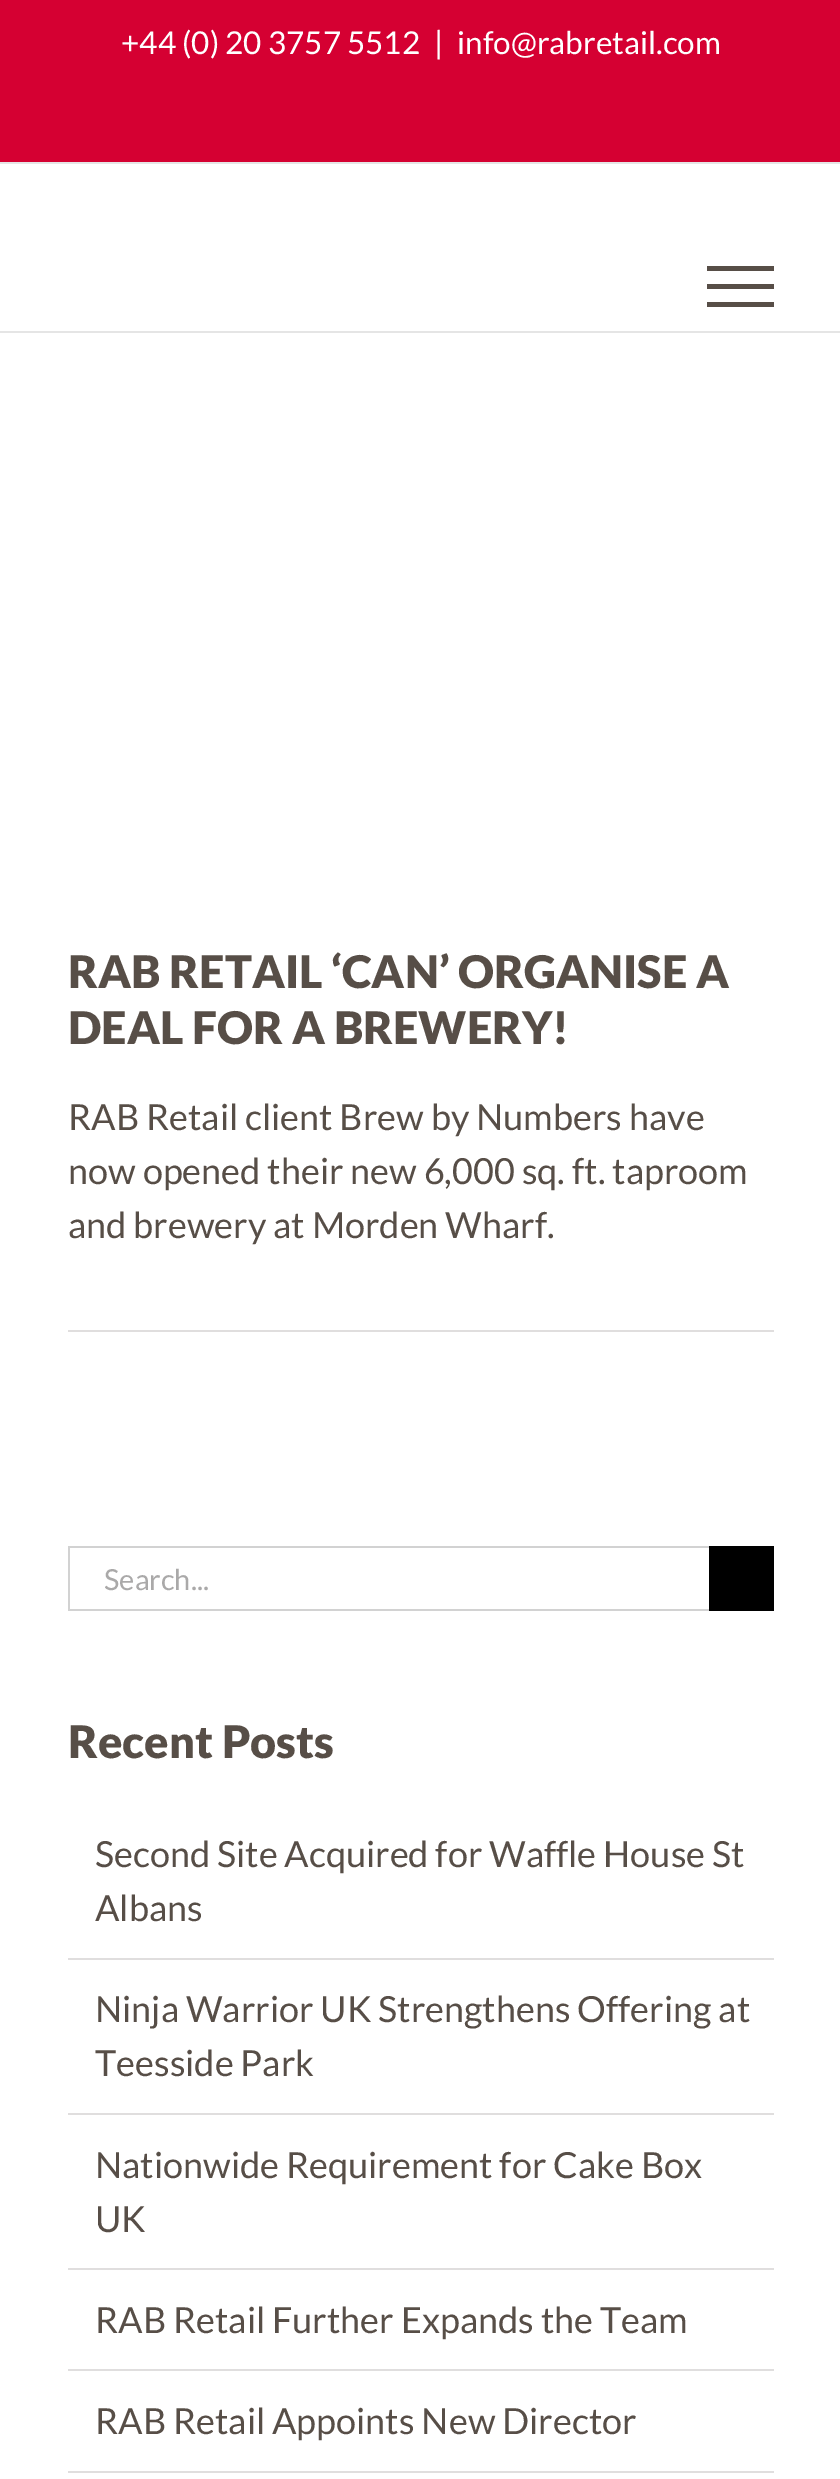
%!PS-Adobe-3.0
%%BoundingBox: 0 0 840 2479
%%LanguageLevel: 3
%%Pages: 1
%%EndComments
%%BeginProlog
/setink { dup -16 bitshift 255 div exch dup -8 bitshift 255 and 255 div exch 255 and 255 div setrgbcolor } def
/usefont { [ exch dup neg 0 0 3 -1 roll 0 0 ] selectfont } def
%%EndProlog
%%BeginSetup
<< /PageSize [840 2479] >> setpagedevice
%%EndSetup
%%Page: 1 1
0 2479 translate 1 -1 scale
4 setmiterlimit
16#FFFFFF setink
0 0 840 2479 rectfill
16#D50032 setink
0 0 840 162 rectfill
16#E5E5E5 setink
0 162 840 2 rectfill
/Lato-Regular 31.5 usefont
16#FFFFFF setink
[
    [(+44 \(0\) 20 3757 5512) 121 54]
    [(|) 434 54]
    [(info@rabretail.com) 457 54]
] { aload pop moveto show } forall
[
    [0 331 840 2 16#E5E5E5]
    [707 266 67 5 16#574E47]
    [707 284 67 5 16#574E47]
    [707 302 67 5 16#574E47]
    [68 1330 706 2 16#E0DEDE]
] { aload pop setink rectfill } forall
/Lato-Black 45 usefont
16#574E47 setink
68 988 moveto (RAB RETAIL ‘CAN’ ORGANISE A) show
68 1044 moveto (DEAL FOR A BREWERY!) show
/Lato-Regular 36 usefont
[
    [(RAB Retail client Brew by Numbers have) 68 1130]
    [(now opened their new 6,000 sq. ft. taproom) 68 1184]
    [(and brewery at Morden Wharf.) 68 1238]
] { aload pop moveto show } forall
[
    [68 1546 641 2 16#D2D2D2]
    [68 1609 641 2 16#D2D2D2]
    [68 1546 2 65 16#D2D2D2]
] { aload pop setink rectfill } forall
/Lato-Regular 29 usefont
16#AAA9A9 setink
104 1590 moveto (Search...) show
16#000000 setink
709 1546 65 65 rectfill
/Lato-Black 45 usefont
16#574E47 setink
68 1758 moveto (Recent Posts) show
16#E0DEDE setink
68 1958 706 2 rectfill
/Lato-Regular 36 usefont
16#574E47 setink
95 1867 moveto (Second Site Acquired for Waffle House St) show
95 1921 moveto (Albans) show
16#E0DEDE setink
68 2113 706 2 rectfill
16#574E47 setink
95 2022 moveto (Ninja Warrior UK Strengthens Offering at) show
95 2076 moveto (Teesside Park) show
16#E0DEDE setink
68 2268 706 2 rectfill
16#574E47 setink
95 2178 moveto (Nationwide Requirement for Cake Box) show
95 2232 moveto (UK) show
16#E0DEDE setink
68 2369 706 2 rectfill
16#574E47 setink
95 2333 moveto (RAB Retail Further Expands the Team) show
16#E0DEDE setink
68 2471 706 2 rectfill
16#574E47 setink
95 2434 moveto (RAB Retail Appoints New Director) show
showpage
%%EOF
